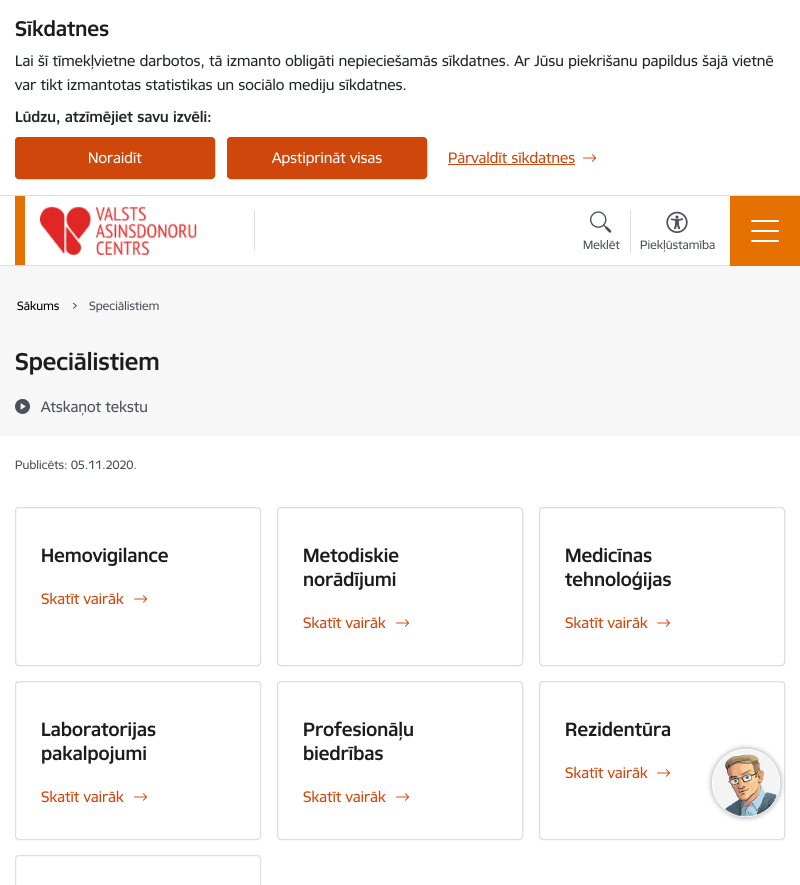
%!PS-Adobe-3.0
%%BoundingBox: 0 0 800 885
%%LanguageLevel: 3
%%Pages: 1
%%EndComments
%%BeginProlog
/setink { dup -16 bitshift 255 div exch dup -8 bitshift 255 and 255 div exch 255 and 255 div setrgbcolor } def
/setalpha { dup .setfillconstantalpha .setstrokeconstantalpha } def
/disc { newpath 0 360 arc closepath } def
/rrect { 5 dict begin { /r /h /w /y /x } { exch def } forall
  x r add y moveto x w add y 2 copy h add r arct x w add y h add x 1 index r arct
  x y h add x y r arct x y 2 copy exch w add exch r arct closepath end } def
/softshadow { 12 dict begin { /a /b /q /h /w /y /x } { exch def } forall gsave /was 0 def
  9 -2 -9 { dup b mul 4 div /e exch def 1 sub .425 mul 2.718 exch exp 1 add a .99 .min exch div /now exch def
    1 1 now sub 1 was sub div sub setalpha /was now def
    w h .min e 2 mul add 0 gt { x e sub y e sub w e 2 mul add h e 2 mul add
      q e add b .6 mul add w h .min 2 div e add .min 0 .max rrect fill } if } for grestore end } def
/drawimage { 5 dict begin { /h /w /y /x /name } { exch def } forall
  gsave x y translate w h scale
  w h 8 [w 0 0 h 0 0] name (r) file false 3 colorimage grestore end } def
%%EndProlog
%%BeginSetup
<< /PageSize [800 885] /PageUsesTransparency true >> setpagedevice
%%EndSetup
%%Page: 1 1
0 .pushpdf14devicefilter
0 885 translate 1 -1 scale
4 setmiterlimit
16#FFFFFF setink
0 0 800 885 rectfill
16#DBDEE4 setink
0 195 800 1 rectfill
(img1.raw) 15 20 94 17 drawimage
(img2.raw) 16 54 758 16 drawimage
(img3.raw) 14 78 392 15 drawimage
(img4.raw) 15 110 196 15 drawimage
16#D0470C setink
15.5 137.5 199 41 3.5 rrect gsave fill grestore
stroke
(img5.raw) 89 151 53 13 drawimage
227.5 137.5 199 41 3.5 rrect gsave fill grestore
stroke
(img6.raw) 271 152 111 14 drawimage
(img7.raw) 449 151 126 13 drawimage
(img8.raw) 583 154 14 8 drawimage
[
    [448 164 127 1 16#D0470C]
    [0 265 730 1 16#DBDEE4]
    [15 196 10 69 16#E57200]
] { aload pop setink rectfill } forall
(img9.raw) 40 206 157 49 drawimage
16#DBDEE4 setink
254 210 1 41 rectfill
(img10.raw) 590 211 22 22 drawimage
(img11.raw) 583 240 37 10 drawimage
630 210 1 43 rectfill
(img12.raw) 666 211 22 22 drawimage
(img13.raw) 640 240 75 12 drawimage
16#E57200 setink
730 196 70 70 rectfill
(img14.raw) 751 220 28 22 drawimage
16#F7F7F7 setink
0 266 800 170 rectfill
(img15.raw) 17 301 42 10 drawimage
(img16.raw) 73 302 4 7 drawimage
(img17.raw) 89 301 70 12 drawimage
(img18.raw) 15 351 144 24 drawimage
(img19.raw) 15 398 15 16 drawimage
(img20.raw) 40 400 107 16 drawimage
(img21.raw) 15 460 121 10 drawimage
16#DBDEE4 setink
15.5 507.5 245 158 3.5 rrect stroke
(img22.raw) 42 547 126 19 drawimage
(img23.raw) 41 592 83 13 drawimage
(img8.raw) 134 595 14 8 drawimage
277.5 507.5 245 158 3.5 rrect stroke
(img24.raw) 304 547 95 16 drawimage
(img25.raw) 304 571 92 19 drawimage
(img23.raw) 303 616 83 13 drawimage
(img8.raw) 396 619 14 8 drawimage
539.5 507.5 245 158 3.5 rrect stroke
(img26.raw) 566 547 86 16 drawimage
(img27.raw) 565 571 106 19 drawimage
(img23.raw) 565 616 83 13 drawimage
(img8.raw) 657 619 14 8 drawimage
15.5 681.5 245 158 3.5 rrect stroke
(img28.raw) 42 721 114 19 drawimage
(img29.raw) 42 745 104 19 drawimage
(img23.raw) 41 790 83 13 drawimage
(img8.raw) 134 793 14 8 drawimage
277.5 681.5 245 158 3.5 rrect stroke
(img30.raw) 304 721 109 20 drawimage
(img31.raw) 304 745 79 16 drawimage
(img23.raw) 303 790 83 13 drawimage
(img8.raw) 396 793 14 8 drawimage
539.5 681.5 245 158 3.5 rrect stroke
(img32.raw) 566 721 105 16 drawimage
(img23.raw) 565 766 83 13 drawimage
(img8.raw) 657 769 14 8 drawimage
15.5 855.5 245 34 3.5 rrect stroke
16#000000 setink
710 747 72 72 36 2 0.2 softshadow
16#FFFFFF setink
746 783 34 disc fill
(img33.raw) 713 750 66 67 drawimage
.poppdf14devicefilter showpage
%%EOF
